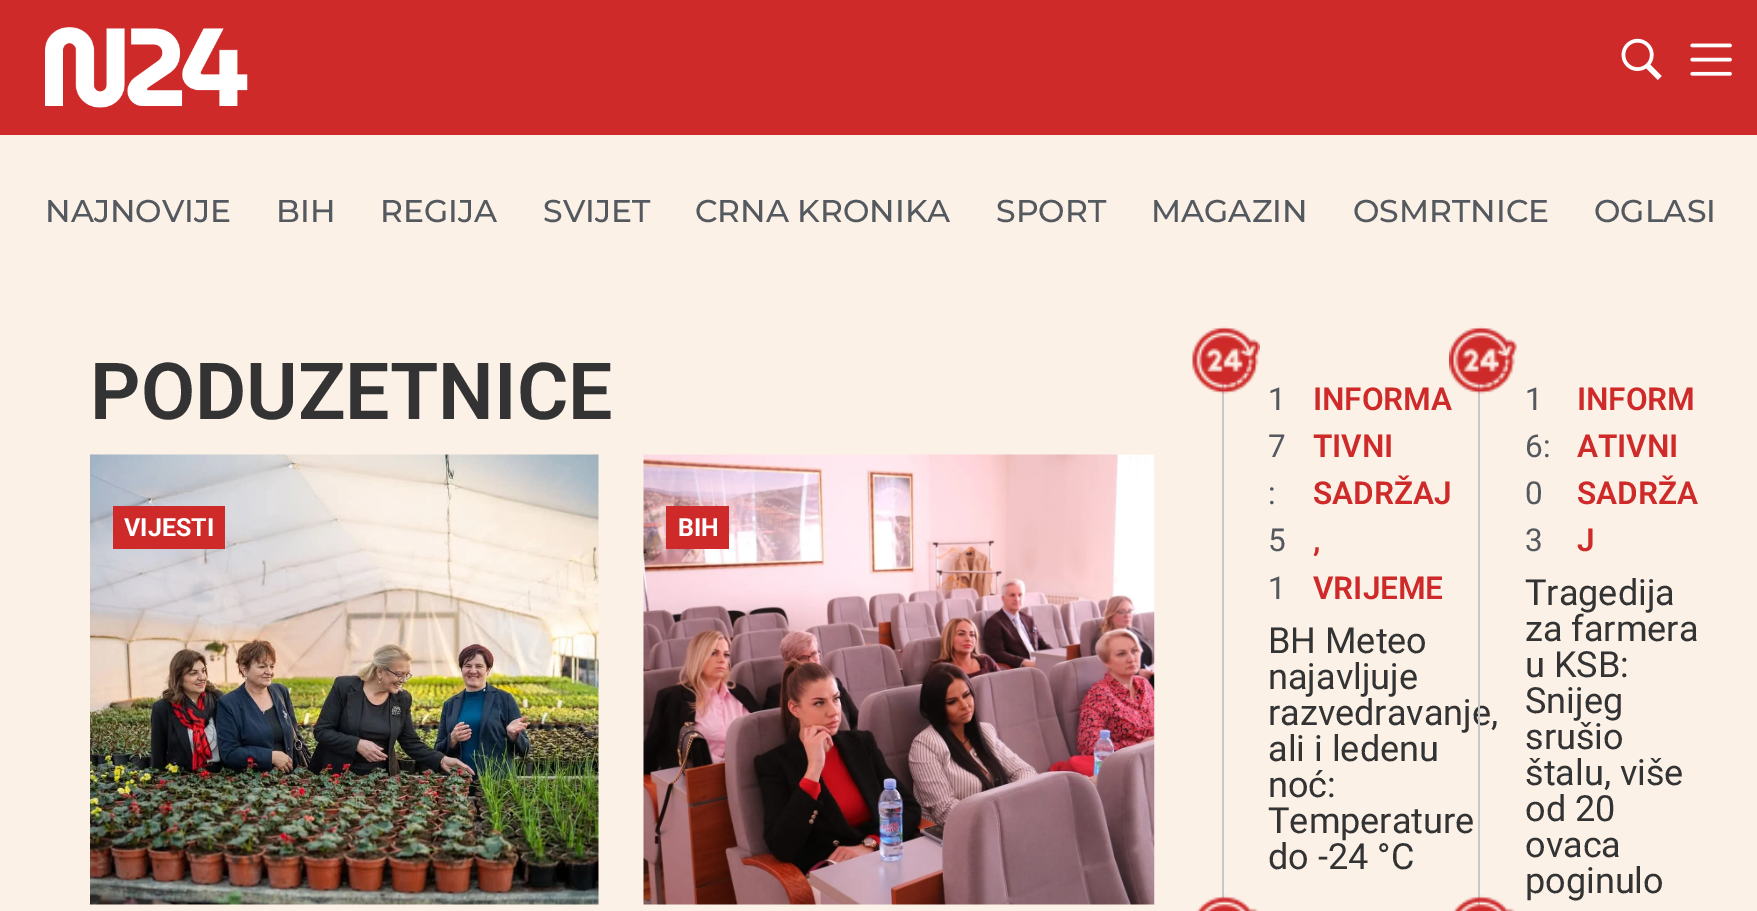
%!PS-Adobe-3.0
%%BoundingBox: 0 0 1757 911
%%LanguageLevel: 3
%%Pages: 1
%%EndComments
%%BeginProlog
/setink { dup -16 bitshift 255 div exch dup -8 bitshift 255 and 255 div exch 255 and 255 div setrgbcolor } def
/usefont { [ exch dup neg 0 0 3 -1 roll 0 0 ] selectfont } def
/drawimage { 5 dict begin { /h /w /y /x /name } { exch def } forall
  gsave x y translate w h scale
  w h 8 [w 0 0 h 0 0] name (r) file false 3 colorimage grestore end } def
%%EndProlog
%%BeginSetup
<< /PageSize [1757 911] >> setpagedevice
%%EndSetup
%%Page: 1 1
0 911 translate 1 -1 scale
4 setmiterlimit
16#FCF1E7 setink
0 0 1757 911 rectfill
16#CE2A2A setink
0 0 1757 135 rectfill
(img1.raw) 45 27 203 81 drawimage
(img2.raw) 1621 38 41 42 drawimage
(img3.raw) 1690 43 42 33 drawimage
/Montserrat-Medium 31.5 usefont
16#54595F setink
[
    [(NAJNOVIJE) 45 222]
    [(BIH) 276 222]
    [(REGIJA) 380 222]
    [(SVIJET) 543 222]
    [(CRNA KRONIKA) 695 222]
    [(SPORT) 996 222]
    [(MAGAZIN) 1151 222]
    [(OSMRTNICE) 1353 222]
    [(OGLASI) 1594 222]
] { aload pop moveto show } forall
/Roboto-SemiBold 78.75 usefont
16#333333 setink
90 419 moveto (PODUZETNICE) show
(img4.raw) 90 454 509 451 drawimage
16#CE2A2A setink
113 506 112 43 rectfill
/Roboto-Bold 25 usefont
16#FFFFFF setink
124 536 moveto (VIJESTI) show
(img5.raw) 643 454 512 451 drawimage
16#CE2A2A setink
666 506 63 43 rectfill
16#FFFFFF setink
678 536 moveto (BIH) show
16#C8C8C8 setink
1222 353 2 545 rectfill
(img6.raw) 1192 326 68 68 drawimage
/Roboto-Regular 31.5 usefont
16#54595F setink
[
    [(1) 1268 410]
    [(7) 1268 457]
    [(:) 1268 504]
    [(5) 1268 551]
    [(1) 1268 599]
] { aload pop moveto show } forall
/Roboto-SemiBold 31.5 usefont
16#CE2A2A setink
[
    [(INFORMA) 1313 410]
    [(TIVNI) 1313 457]
    [(SADRŽAJ) 1313 504]
    [(,) 1313 551]
    [(VRIJEME) 1313 599]
] { aload pop moveto show } forall
/Roboto-Regular 36 usefont
16#333333 setink
[
    [(BH Meteo) 1268 653]
    [(najavljuje) 1268 689]
    [(razvedravanje,) 1268 725]
    [(ali i ledenu) 1268 761]
    [(noć:) 1268 797]
    [(Temperature) 1268 833]
    [(do -24 °C) 1268 869]
] { aload pop moveto show } forall
16#C8C8C8 setink
1478 353 2 558 rectfill
(img7.raw) 1449 326 68 68 drawimage
/Roboto-Regular 31.5 usefont
16#54595F setink
[
    [(1) 1525 410]
    [(6:) 1525 457]
    [(0) 1525 504]
    [(3) 1525 551]
] { aload pop moveto show } forall
/Roboto-SemiBold 31.5 usefont
16#CE2A2A setink
[
    [(INFORM) 1577 410]
    [(ATIVNI) 1577 457]
    [(SADRŽA) 1577 504]
    [(J) 1577 551]
] { aload pop moveto show } forall
/Roboto-Regular 36 usefont
16#333333 setink
[
    [(Tragedija) 1525 605]
    [(za farmera) 1525 641]
    [(u KSB:) 1525 677]
    [(Snijeg) 1525 713]
    [(srušio) 1525 749]
    [(štalu, više) 1525 785]
    [(od 20) 1525 821]
    [(ovaca) 1525 857]
    [(poginulo) 1525 893]
] { aload pop moveto show } forall
(img8.raw) 1196 895 63 16 drawimage
(img9.raw) 1453 895 62 16 drawimage
showpage
%%EOF
